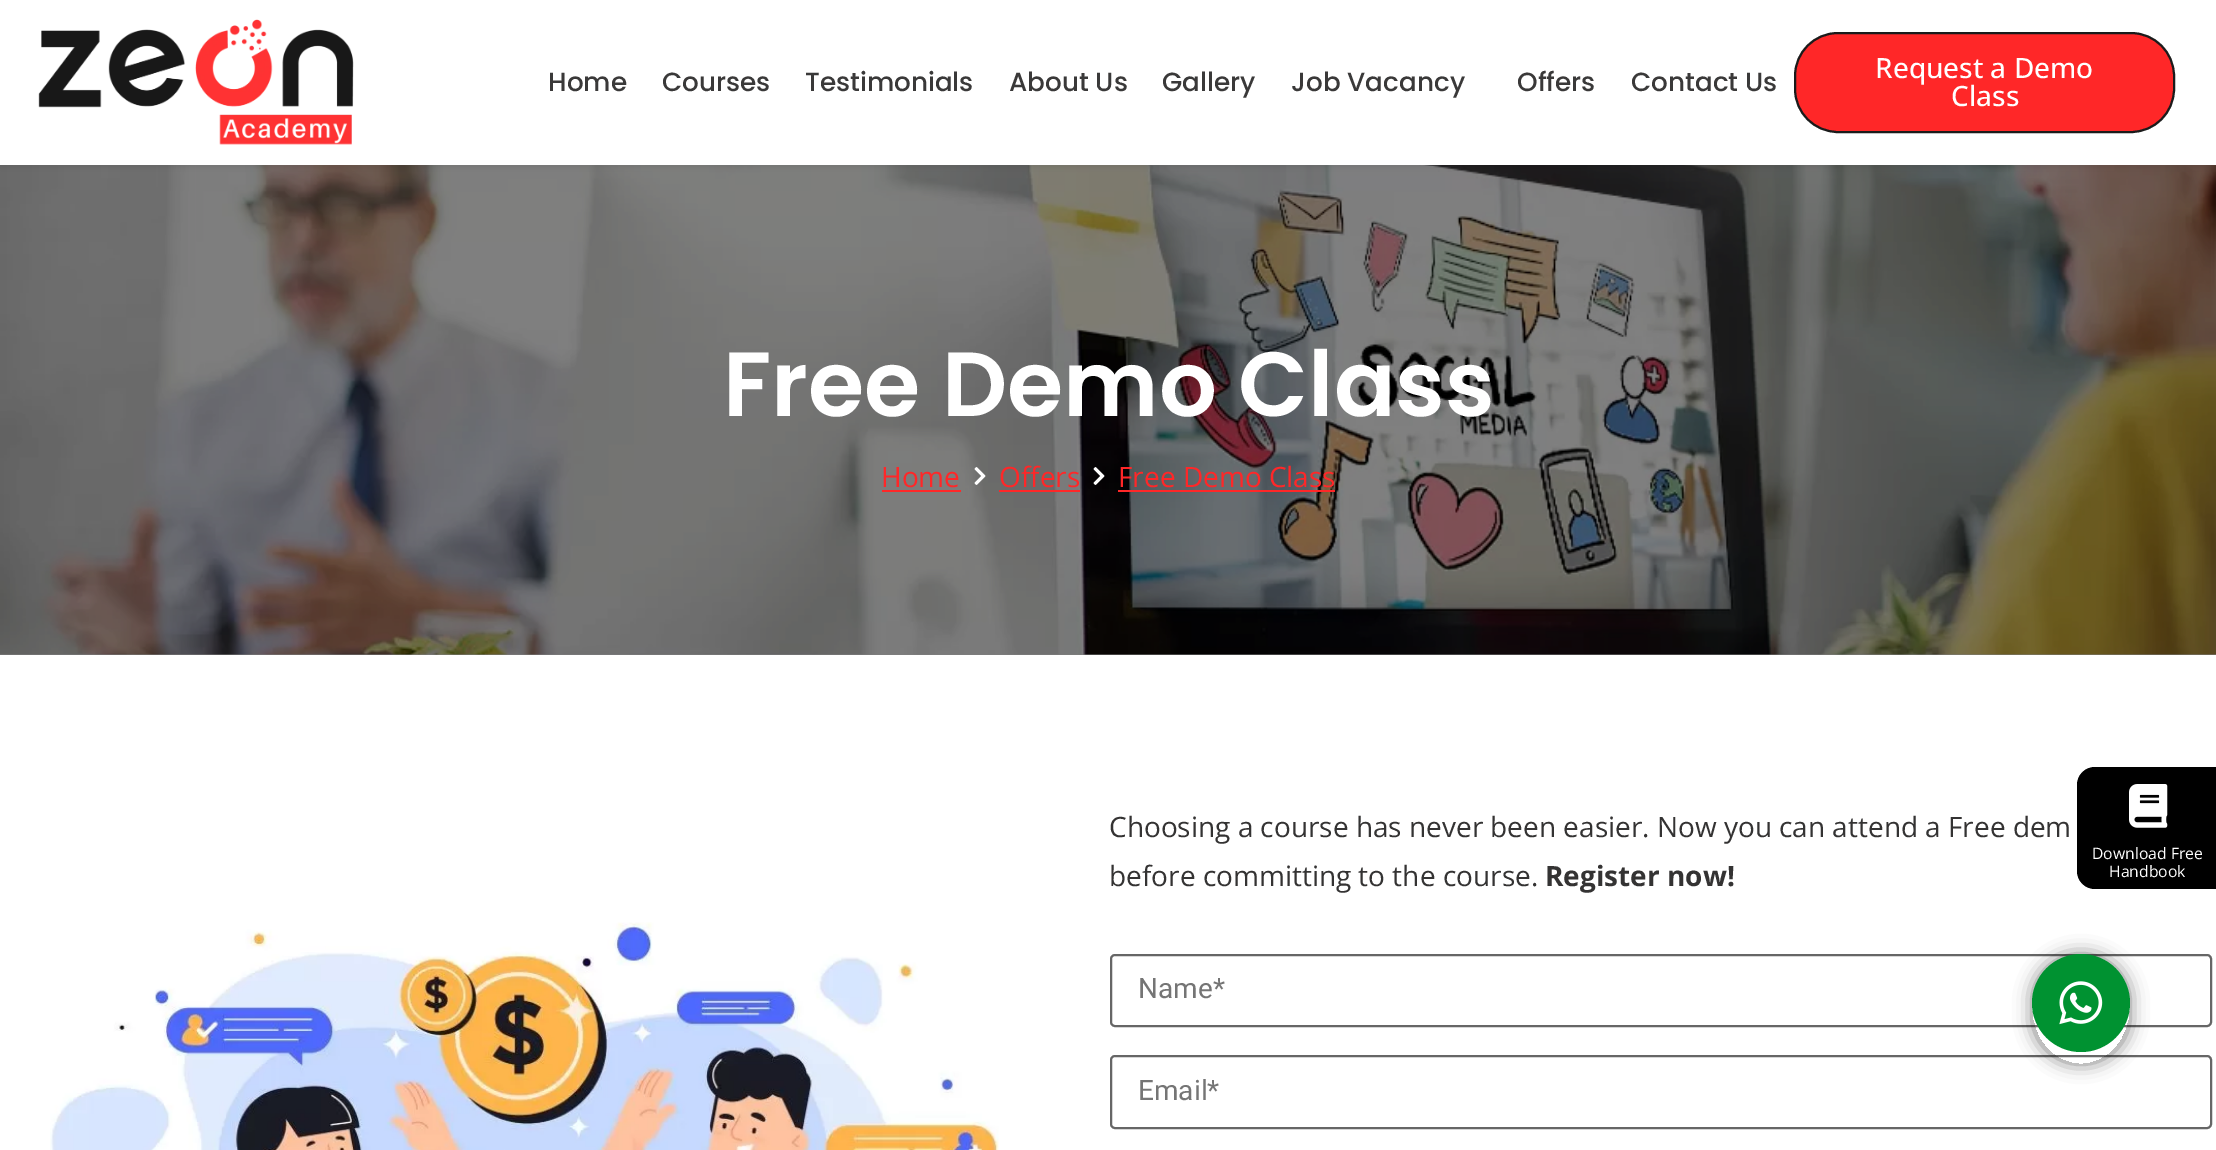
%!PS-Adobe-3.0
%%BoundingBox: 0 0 2216 1150
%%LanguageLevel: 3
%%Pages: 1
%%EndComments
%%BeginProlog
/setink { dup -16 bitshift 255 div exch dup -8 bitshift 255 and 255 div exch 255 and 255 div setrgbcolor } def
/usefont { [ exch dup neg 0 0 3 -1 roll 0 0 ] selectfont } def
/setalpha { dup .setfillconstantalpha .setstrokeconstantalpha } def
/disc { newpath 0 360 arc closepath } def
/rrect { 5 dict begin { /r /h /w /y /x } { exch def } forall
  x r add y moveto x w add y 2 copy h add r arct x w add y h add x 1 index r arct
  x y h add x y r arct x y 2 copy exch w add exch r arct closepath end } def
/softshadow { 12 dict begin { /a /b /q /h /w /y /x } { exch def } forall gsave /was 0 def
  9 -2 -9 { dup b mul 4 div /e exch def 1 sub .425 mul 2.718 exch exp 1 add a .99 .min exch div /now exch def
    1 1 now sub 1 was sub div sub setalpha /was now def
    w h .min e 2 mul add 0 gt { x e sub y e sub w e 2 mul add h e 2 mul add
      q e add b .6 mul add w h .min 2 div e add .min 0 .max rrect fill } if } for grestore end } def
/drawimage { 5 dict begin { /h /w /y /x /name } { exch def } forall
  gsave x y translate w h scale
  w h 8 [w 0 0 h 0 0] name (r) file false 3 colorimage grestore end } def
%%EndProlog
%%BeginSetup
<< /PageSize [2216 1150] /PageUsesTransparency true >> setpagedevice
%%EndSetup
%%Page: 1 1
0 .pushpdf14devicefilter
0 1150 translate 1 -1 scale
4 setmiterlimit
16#FFFFFF setink
0 0 2216 1150 rectfill
16#808080 setink
0 654 2216 1 rectfill
(img2.raw) 0 165 2216 490 drawimage
16#000000 setink
0 2 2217 164 0 4.5 0.12 softshadow
16#FFFFFF setink
0 0 2216 165 rectfill
(img1.raw) 38 19 316 126 drawimage
/Poppins-Medium 26.25 usefont
16#3A3939 setink
[
    [(Home) 548 91]
    [(Courses) 662 91]
    [(Testimonials) 805 91]
    [(About Us) 1009 91]
    [(Gallery) 1162 91]
    [(Job Vacancy) 1291 91]
    [(Offers) 1517 91]
    [(Contact Us) 1631 91]
] { aload pop moveto show } forall
16#FF2728 setink
1795 33 379 99 43 rrect gsave fill grestore
16#1B1B1B setink
2 setlinewidth
stroke
/OpenSans-Medium 28 usefont
16#FFFFFF setink
1875 78 moveto (Request a Demo) show
1951 106 moveto (Class) show
/Poppins-SemiBold 91 usefont
723 416 moveto (Free Demo Class) show
/OpenSans-Regular 28 usefont
16#FF2728 setink
881 487 moveto (Home) show
882 490 79 2 rectfill
(img3.raw) 974 467 12 18 drawimage
999 487 moveto (Offers) show
999 490 81 2 rectfill
(img4.raw) 1093 467 12 18 drawimage
1118 487 moveto (Free Demo Class) show
1118 490 217 2 rectfill
(img5.raw) 50 922 949 228 drawimage
16#343333 setink
1109 837 moveto (Choosing a course has never been easier. Now you can attend a Free dem) show
1109 886 moveto (before committing to the course.) show
/OpenSans-Bold 28 usefont
1545 886 moveto (Register now!) show
16#666666 setink
1111 955 1100 71 4 rrect stroke
/Roboto-Regular 28 usefont
16#757575 setink
1138 998 moveto (Name*) show
16#666666 setink
1111 1056 1100 72 4 rrect stroke
16#757575 setink
1138 1100 moveto (Email*) show
16#000000 setink
2095 767 moveto 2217 767 lineto 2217 889 lineto 2095 889 lineto 2085 889 2077 881 2077 871 curveto 2077 785 lineto 2077 775 2085 767 2095 767 curveto closepath fill
(img6.raw) 2129 784 39 44 drawimage
/OpenSans-Regular 15.75 usefont
16#FFFFFF setink
2092 859 moveto (Download Free) show
2109 877 moveto (Handbook) show
gsave
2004 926 moveto 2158 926 lineto 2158 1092 lineto 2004 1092 lineto closepath 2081 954 moveto 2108 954 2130 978.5 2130 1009 curveto 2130 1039.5 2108 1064 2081 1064 curveto 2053.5 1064 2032 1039.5 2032 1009 curveto 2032 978.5 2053.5 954 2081 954 curveto closepath eoclip newpath
16#000000 setink
2032 954 98 110 49 9 0.5 softshadow
grestore
16#009231 setink
2081 1003 49 disc fill
(img7.raw) 2059 981 44 44 drawimage
.poppdf14devicefilter showpage
%%EOF
